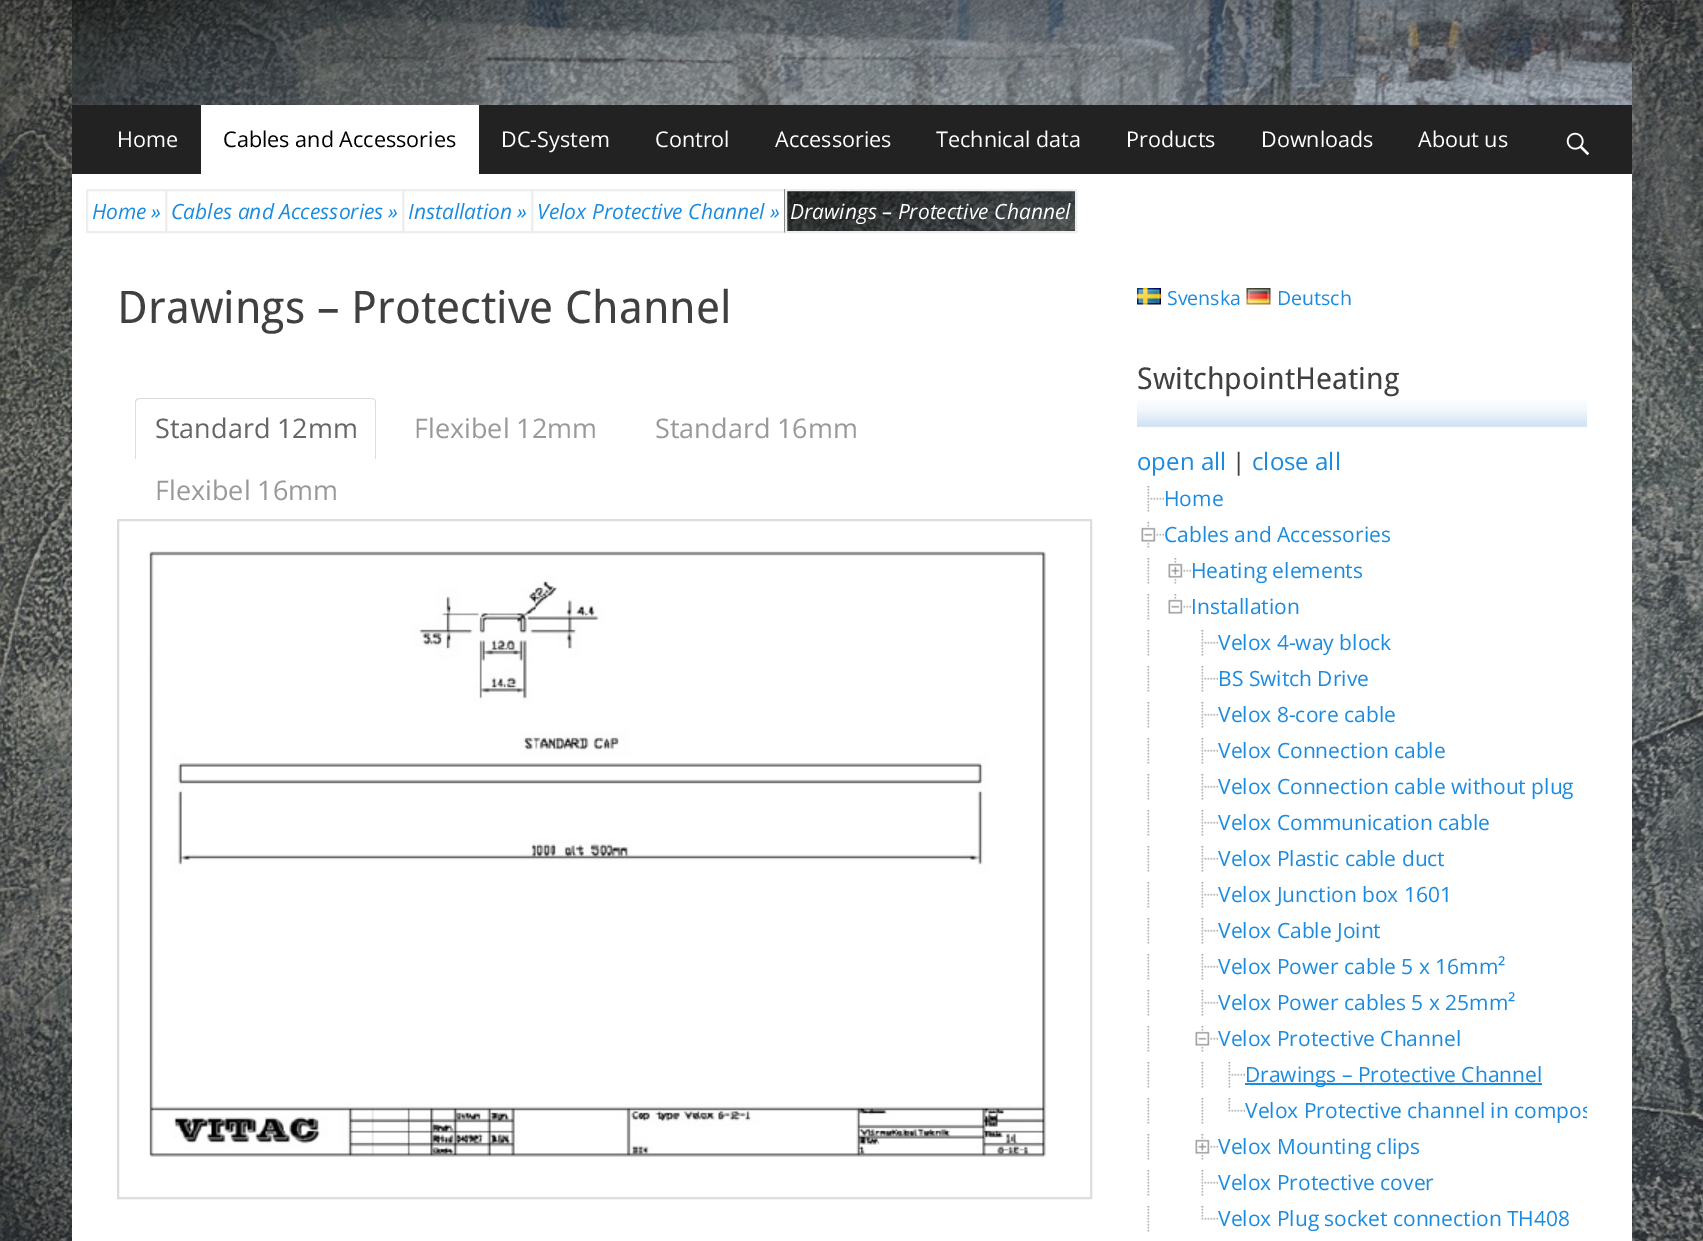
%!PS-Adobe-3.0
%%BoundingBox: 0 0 1703 1241
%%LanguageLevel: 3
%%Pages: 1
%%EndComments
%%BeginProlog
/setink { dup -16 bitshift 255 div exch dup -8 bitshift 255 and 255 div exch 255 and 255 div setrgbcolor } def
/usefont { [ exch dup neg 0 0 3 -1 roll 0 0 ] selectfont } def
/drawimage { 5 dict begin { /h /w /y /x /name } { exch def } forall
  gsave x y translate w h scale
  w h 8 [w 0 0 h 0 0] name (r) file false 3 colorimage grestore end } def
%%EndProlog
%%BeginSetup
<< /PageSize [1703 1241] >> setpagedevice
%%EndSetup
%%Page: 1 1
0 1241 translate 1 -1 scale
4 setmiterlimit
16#FFFFFF setink
0 0 1703 1241 rectfill
(img1.raw) 0 0 1703 1241 drawimage
(img2.raw) 72 0 1560 105 drawimage
16#222222 setink
72 105 1560 69 rectfill
/OpenSans-Regular 21.6 usefont
16#FFFFFF setink
117 147 moveto (Home) show
201 105 278 69 rectfill
16#000000 setink
223 147 moveto (Cables and Accessories) show
16#FFFFFF setink
[
    [(DC-System) 501 147]
    [(Control) 655 147]
    [(Accessories) 775 147]
    [(Technical data) 936 147]
    [(Products) 1126 147]
    [(Downloads) 1261 147]
    [(About us) 1418 147]
] { aload pop moveto show } forall
(img3.raw) 1566 132 24 24 drawimage
72 174 1560 1067 rectfill
16#EEEEEE setink
2 setlinewidth
87 190 79 42 rectstroke
/OpenSans-Italic 21 usefont
16#1B8BE0 setink
92 219 moveto (Home) show
151 219 moveto (») show
16#EEEEEE setink
166 190 237 42 rectstroke
16#1B8BE0 setink
171 219 moveto (Cables and Accessories) show
388 219 moveto (») show
16#EEEEEE setink
403 190 129 42 rectstroke
16#1B8BE0 setink
408 219 moveto (Installation) show
517 219 moveto (») show
16#EEEEEE setink
532 190 253 42 rectstroke
16#1B8BE0 setink
537 219 moveto (Velox Protective Channel) show
770 219 moveto (») show
(img4.raw) 784 189 291 44 drawimage
16#EEEEEE setink
786 190 290 42 rectstroke
16#FFFFFF setink
790 219 moveto (Drawings – Protective Channel) show
/DroidSans-Regular 45 usefont
16#404040 setink
117 323 moveto (Drawings – Protective Channel) show
16#DDDDDD setink
140 398 moveto 372 398 lineto 374 398 376 400 376 402 curveto 376 459 lineto 135 459 lineto 135 402 lineto 135 400 137 398 140 398 curveto closepath 140 399 moveto 372 399 lineto 374 399 375 400 375 402 curveto 375 459 lineto 136 459 lineto 136 402 lineto 136 400 138 399 140 399 curveto closepath eofill
/OpenSans-Regular 27 usefont
16#666666 setink
155 438 moveto (Standard 12mm) show
16#999999 setink
[
    [(Flexibel 12mm) 414 438]
    [(Standard 16mm) 655 438]
    [(Flexibel 16mm) 155 500]
] { aload pop moveto show } forall
16#DDDDDD setink
118 520 973 678 rectstroke
(img5.raw) 149 551 898 607 drawimage
(img6.raw) 1137 288 24 17 drawimage
/OpenSans-Regular 19.5 usefont
16#1B8BE0 setink
1167 305 moveto (Svenska) show
(img7.raw) 1246 288 25 17 drawimage
1277 305 moveto (Deutsch) show
(img8.raw) 1137 400 450 28 drawimage
/DroidSans-Regular 30 usefont
16#404040 setink
1137 389 moveto (SwitchpointHeating) show
/OpenSans-Regular 24 usefont
16#1B8BE0 setink
1137 470 moveto (open all) show
16#404040 setink
1232 470 moveto (|) show
16#1B8BE0 setink
1252 470 moveto (close all) show
(img9.raw) 1147 486 17 26 drawimage
/OpenSans-Regular 21 usefont
1164 506 moveto (Home) show
(img10.raw) 1141 522 23 26 drawimage
1164 542 moveto (Cables and Accessories) show
(img11.raw) 1147 558 3 26 drawimage
(img12.raw) 1168 558 23 26 drawimage
1191 578 moveto (Heating elements) show
(img11.raw) 1147 594 3 26 drawimage
(img13.raw) 1168 594 23 20 drawimage
1191 614 moveto (Installation) show
(img11.raw) 1147 630 3 26 drawimage
(img9.raw) 1201 630 17 26 drawimage
1218 650 moveto (Velox 4-way block) show
(img11.raw) 1147 666 3 26 drawimage
(img9.raw) 1201 666 17 26 drawimage
1218 686 moveto (BS Switch Drive) show
(img11.raw) 1147 702 3 26 drawimage
(img9.raw) 1201 702 17 26 drawimage
1218 722 moveto (Velox 8-core cable) show
(img11.raw) 1147 738 3 26 drawimage
(img9.raw) 1201 738 17 26 drawimage
1218 758 moveto (Velox Connection cable) show
(img11.raw) 1147 774 3 26 drawimage
(img9.raw) 1201 774 17 26 drawimage
1218 794 moveto (Velox Connection cable without plug) show
(img11.raw) 1147 810 3 26 drawimage
(img9.raw) 1201 810 17 26 drawimage
1218 830 moveto (Velox Communication cable) show
(img11.raw) 1147 846 3 26 drawimage
(img9.raw) 1201 846 17 26 drawimage
1218 866 moveto (Velox Plastic cable duct) show
(img11.raw) 1147 882 3 26 drawimage
(img9.raw) 1201 882 17 26 drawimage
1218 902 moveto (Velox Junction box 1601) show
(img11.raw) 1147 918 3 26 drawimage
(img9.raw) 1201 918 17 26 drawimage
1218 938 moveto (Velox Cable Joint) show
(img11.raw) 1147 954 3 26 drawimage
(img9.raw) 1201 954 17 26 drawimage
1218 974 moveto (Velox Power cable 5 x 16mm²) show
(img11.raw) 1147 990 3 26 drawimage
(img9.raw) 1201 990 17 26 drawimage
1218 1010 moveto (Velox Power cables 5 x 25mm²) show
(img11.raw) 1147 1026 3 26 drawimage
(img10.raw) 1195 1026 23 26 drawimage
1218 1046 moveto (Velox Protective Channel) show
(img11.raw) 1147 1062 3 26 drawimage
(img11.raw) 1201 1062 3 26 drawimage
(img9.raw) 1228 1062 17 26 drawimage
1245 1083 297 2 rectfill
1245 1082 moveto (Drawings – Protective Channel) show
(img11.raw) 1147 1098 3 26 drawimage
(img11.raw) 1201 1098 3 26 drawimage
(img14.raw) 1228 1098 17 14 drawimage
gsave
1137 1055 450 72 rectclip
1245 1118 moveto (Velox Protective channel in compos) show
grestore
(img11.raw) 1147 1134 3 26 drawimage
(img12.raw) 1195 1134 23 26 drawimage
1218 1154 moveto (Velox Mounting clips) show
(img11.raw) 1147 1170 3 26 drawimage
(img9.raw) 1201 1170 17 26 drawimage
1218 1190 moveto (Velox Protective cover) show
(img11.raw) 1147 1206 3 26 drawimage
(img14.raw) 1201 1206 17 14 drawimage
1218 1226 moveto (Velox Plug socket connection TH408) show
showpage
%%EOF
